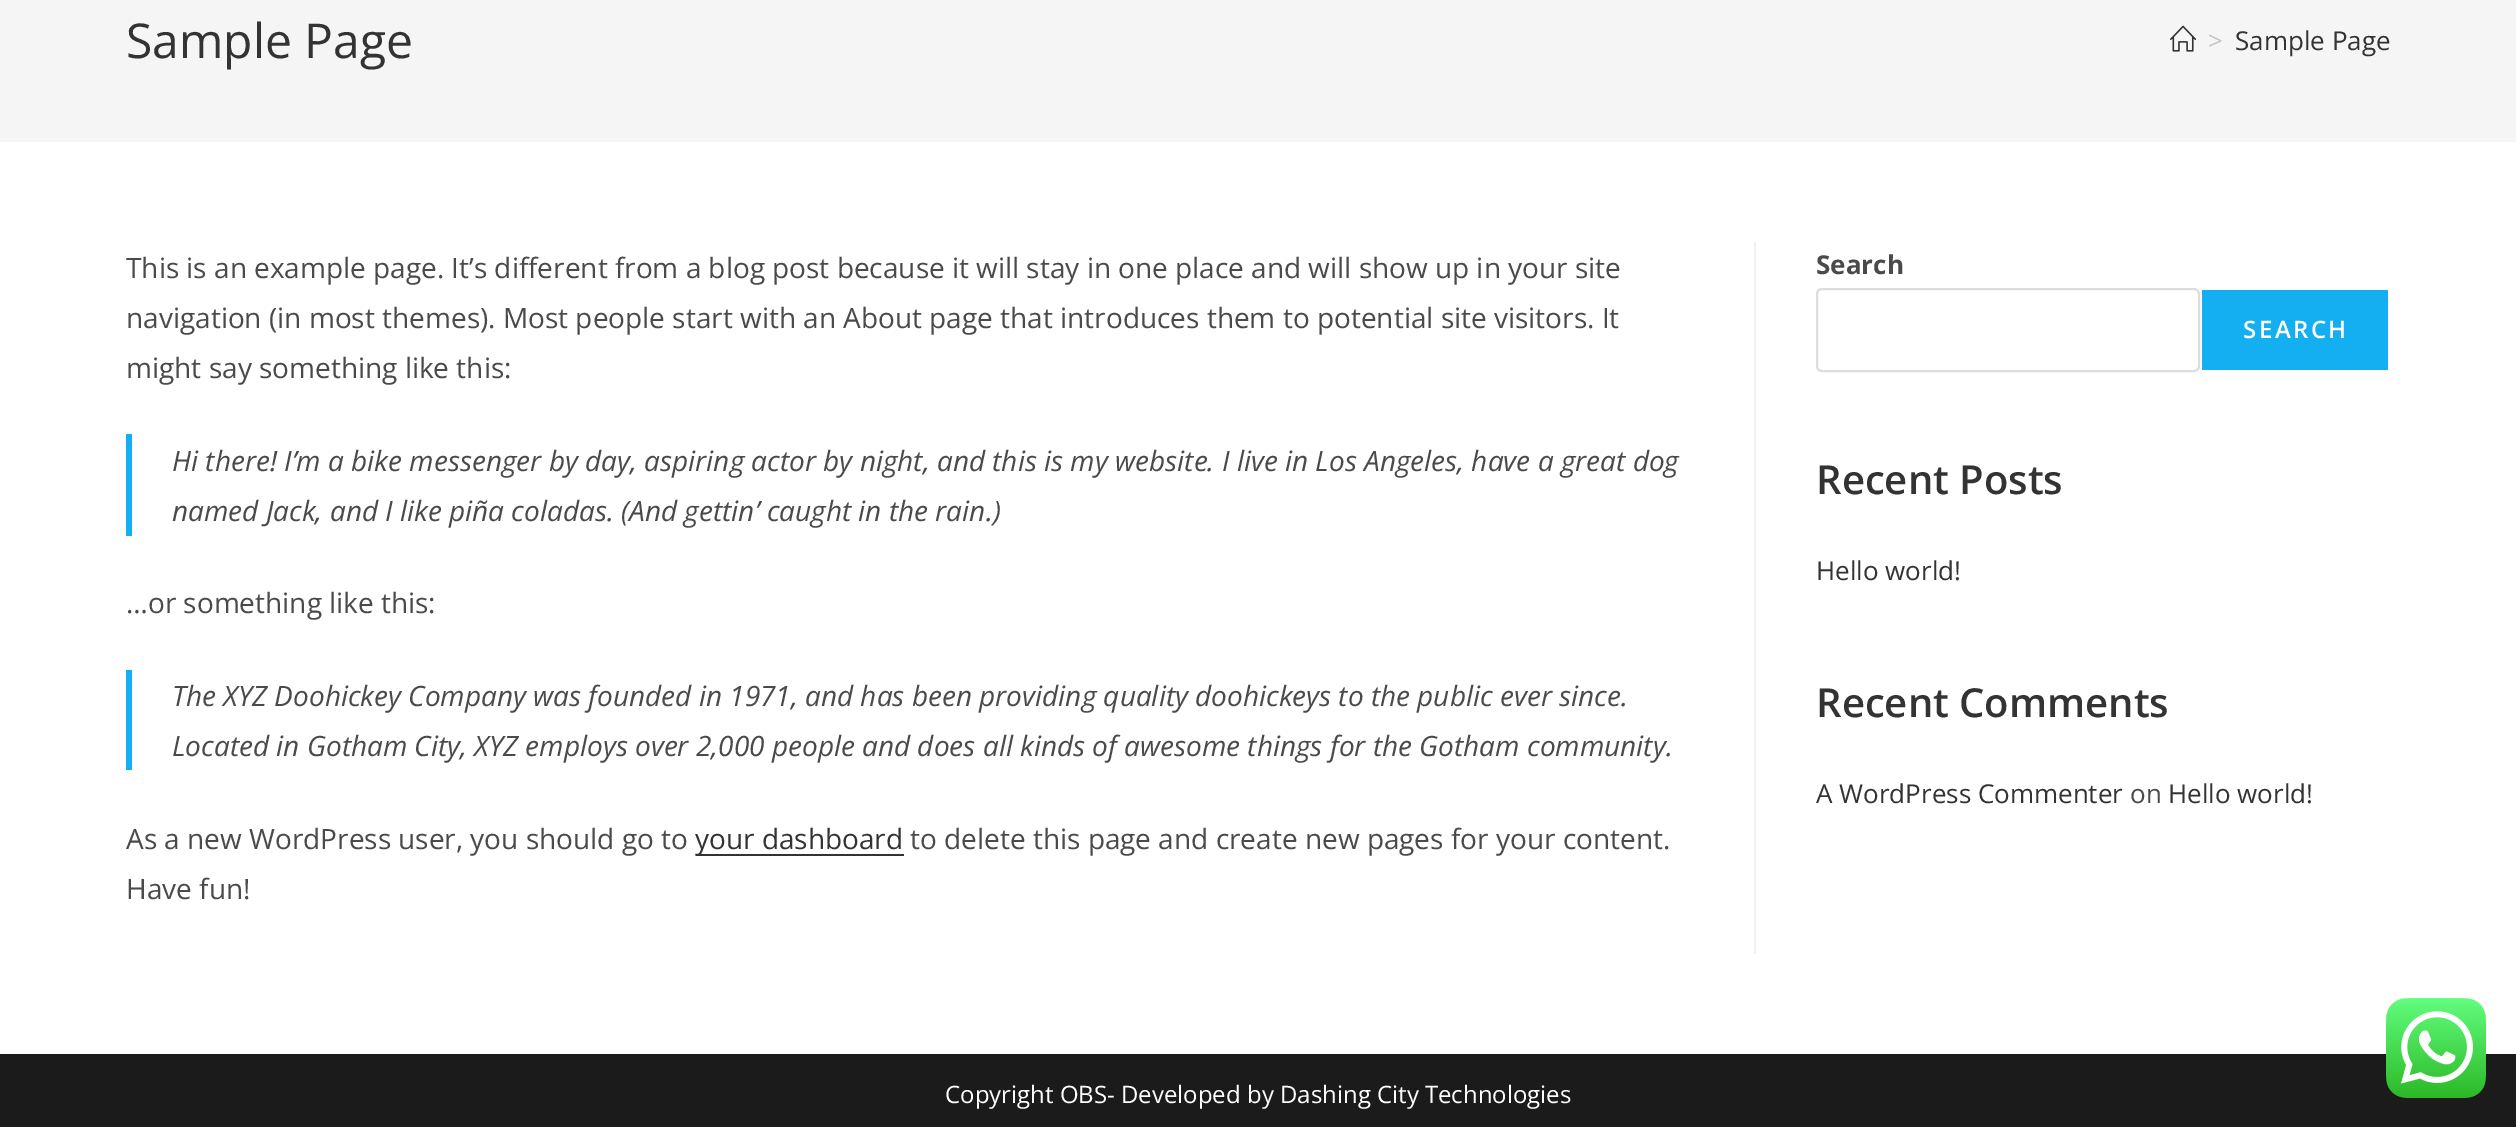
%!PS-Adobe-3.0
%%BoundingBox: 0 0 2516 1127
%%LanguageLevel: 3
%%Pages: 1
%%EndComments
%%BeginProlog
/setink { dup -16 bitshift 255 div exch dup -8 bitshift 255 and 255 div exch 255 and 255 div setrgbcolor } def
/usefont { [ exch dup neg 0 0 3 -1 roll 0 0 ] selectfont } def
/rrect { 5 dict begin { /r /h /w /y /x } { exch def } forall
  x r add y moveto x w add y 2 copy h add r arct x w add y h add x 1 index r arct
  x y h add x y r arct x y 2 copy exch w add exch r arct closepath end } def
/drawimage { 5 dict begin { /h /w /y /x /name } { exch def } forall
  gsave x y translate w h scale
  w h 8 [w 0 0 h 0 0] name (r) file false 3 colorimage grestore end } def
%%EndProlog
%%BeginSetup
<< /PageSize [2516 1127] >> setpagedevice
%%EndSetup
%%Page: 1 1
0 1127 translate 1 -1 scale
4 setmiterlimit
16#FFFFFF setink
0 0 2516 1127 rectfill
16#F5F5F5 setink
0 0 2516 142 rectfill
/OpenSans-Regular 48 usefont
16#333333 setink
126 58 moveto (Sample Page) show
(img1.raw) 2170 25 26 27 drawimage
/OpenSans-Regular 26 usefont
16#C6C6C6 setink
2208 50 moveto (>) show
16#333333 setink
2235 50 moveto (Sample Page) show
16#F1F1F1 setink
1754 242 2 712 rectfill
/OpenSans-Regular 28 usefont
16#4A4A4A setink
[
    [(This is an example page. It’s different from a blog post because it will stay in one place and will show up in your site) 126 278]
    [(navigation \(in most themes\). Most people start with an About page that introduces them to potential site visitors. It) 126 328]
    [(might say something like this:) 126 378]
] { aload pop moveto show } forall
16#13AFF0 setink
126 434 6 102 rectfill
/OpenSans-Italic 28 usefont
16#4A4A4A setink
172 471 moveto (Hi there! I’m a bike messenger by day, aspiring actor by night, and this is my website. I live in Los Angeles, have a great dog) show
172 521 moveto (named Jack, and I like piña coladas. \(And gettin’ caught in the rain.\)) show
/OpenSans-Regular 28 usefont
126 613 moveto (…or something like this:) show
16#13AFF0 setink
126 670 6 100 rectfill
/OpenSans-Italic 28 usefont
16#4A4A4A setink
172 706 moveto (The XYZ Doohickey Company was founded in 1971, and has been providing quality doohickeys to the public ever since.) show
172 756 moveto (Located in Gotham City, XYZ employs over 2,000 people and does all kinds of awesome things for the Gotham community.) show
/OpenSans-Regular 28 usefont
126 849 moveto (As a new WordPress user, you should go to) show
16#333333 setink
696 854 208 2 rectfill
695 849 moveto (your dashboard) show
16#4A4A4A setink
910 849 moveto (to delete this page and create new pages for your content.) show
126 899 moveto (Have fun!) show
/OpenSans-Bold 26 usefont
1816 274 moveto (Search) show
16#DDDDDD setink
2 setlinewidth
1817 289 382 82 5 rrect stroke
16#13AFF0 setink
2202 290 186 80 rectfill
/OpenSans-SemiBold 24 usefont
16#FFFFFF setink
2243 338 moveto 2.5 0 (SEARCH) ashow
/OpenSans-SemiBold 40 usefont
16#333333 setink
1816 494 moveto (Recent Posts) show
/OpenSans-Regular 26 usefont
1816 580 moveto (Hello world!) show
/OpenSans-SemiBold 40 usefont
1816 717 moveto (Recent Comments) show
/OpenSans-Regular 26 usefont
1816 803 moveto (A WordPress Commenter) show
16#4A4A4A setink
2130 803 moveto (on) show
16#333333 setink
2168 803 moveto (Hello world!) show
16#1B1B1B setink
0 1054 2516 73 rectfill
/OpenSans-Regular 24 usefont
16#FFFFFF setink
945 1103 moveto (Copyright OBS- Developed by Dashing City Technologies) show
(img2.raw) 2386 998 100 100 drawimage
showpage
%%EOF
